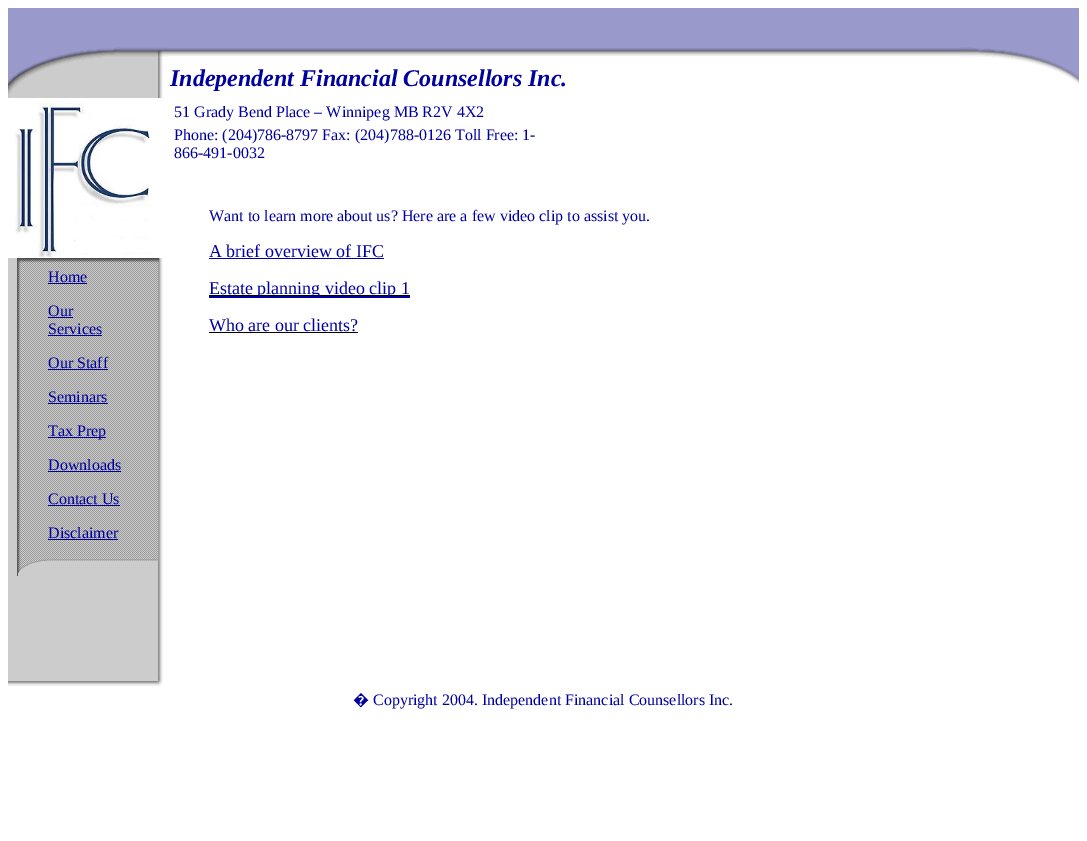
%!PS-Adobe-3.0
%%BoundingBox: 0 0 1087 841
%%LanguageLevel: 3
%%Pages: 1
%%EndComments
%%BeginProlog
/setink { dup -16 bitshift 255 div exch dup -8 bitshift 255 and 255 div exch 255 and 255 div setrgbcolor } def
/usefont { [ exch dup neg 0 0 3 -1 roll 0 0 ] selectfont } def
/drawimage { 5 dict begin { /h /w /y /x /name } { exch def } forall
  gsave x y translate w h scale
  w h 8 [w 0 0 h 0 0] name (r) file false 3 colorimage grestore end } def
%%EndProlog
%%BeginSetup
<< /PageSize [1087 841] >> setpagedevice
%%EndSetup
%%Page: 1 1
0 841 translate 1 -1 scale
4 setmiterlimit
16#FFFFFF setink
0 0 1087 841 rectfill
(img1.raw) 8 8 161 50 drawimage
(img2.raw) 169 8 791 48 drawimage
(img3.raw) 960 8 119 50 drawimage
(img4.raw) 8 58 155 40 drawimage
/LiberationSerif-BoldItalic 24 usefont
16#0000A0 setink
170 86 moveto (Independent Financial Counsellors Inc.) show
(img5.raw) 1003 58 76 27 drawimage
/LiberationSerif-Regular 16 usefont
[
    [(51 Grady Bend Place – Winnipeg MB R2V 4X2) 174 117]
    [(Phone: \(204\)786-8797 Fax: \(204\)788-0126 Toll Free: 1-) 174 140]
    [(866-491-0032) 174 158]
    [(Want to learn more about us? Here are a few video clip to assist you.) 209 221]
] { aload pop moveto show } forall
/LiberationSerif-Regular 18 usefont
209 257 moveto (A brief overview of IFC) show
[
    [209 258 175 1 16#0000A0]
    [209 296 201 2 16#0000A0]
    [209 295 201 1 16#000000]
] { aload pop setink rectfill } forall
16#0000A0 setink
209 294 moveto (Estate planning video clip 1) show
209 331 moveto (Who are our clients?) show
16#000000 setink
209 332 149 1 rectfill
(img6.raw) 14 98 136 160 drawimage
(img7.raw) 8 258 155 320 drawimage
(img8.raw) 17 258 142 10 drawimage
(img9.raw) 17 268 142 34 drawimage
/LiberationSerif-Regular 16 usefont
16#0000A0 setink
48 282 moveto (Home) show
48 283 39 1 rectfill
(img10.raw) 17 302 142 52 drawimage
48 316 moveto (Our) show
48 317 25 1 rectfill
48 334 moveto (Services) show
48 335 54 1 rectfill
(img9.raw) 17 354 142 34 drawimage
48 368 moveto (Our Staff) show
48 369 60 1 rectfill
(img9.raw) 17 388 142 34 drawimage
48 402 moveto (Seminars) show
48 403 60 1 rectfill
(img9.raw) 17 422 142 34 drawimage
48 437 58 1 rectfill
48 436 moveto (Tax Prep) show
(img9.raw) 17 456 142 34 drawimage
48 470 moveto (Downloads) show
48 471 73 1 rectfill
(img9.raw) 17 490 142 34 drawimage
48 504 moveto (Contact Us) show
48 505 72 1 rectfill
(img9.raw) 17 524 142 34 drawimage
48 538 moveto (Disclaimer) show
48 539 70 1 rectfill
(img11.raw) 17 558 142 18 drawimage
(img12.raw) 8 578 155 100 drawimage
(img13.raw) 8 678 155 8 drawimage
/NotoSans-Regular 16 usefont
353 705 moveto (�) show
/LiberationSerif-Regular 16 usefont
373 705 moveto (Copyright 2004. Independent Financial Counsellors Inc.) show
showpage
%%EOF
